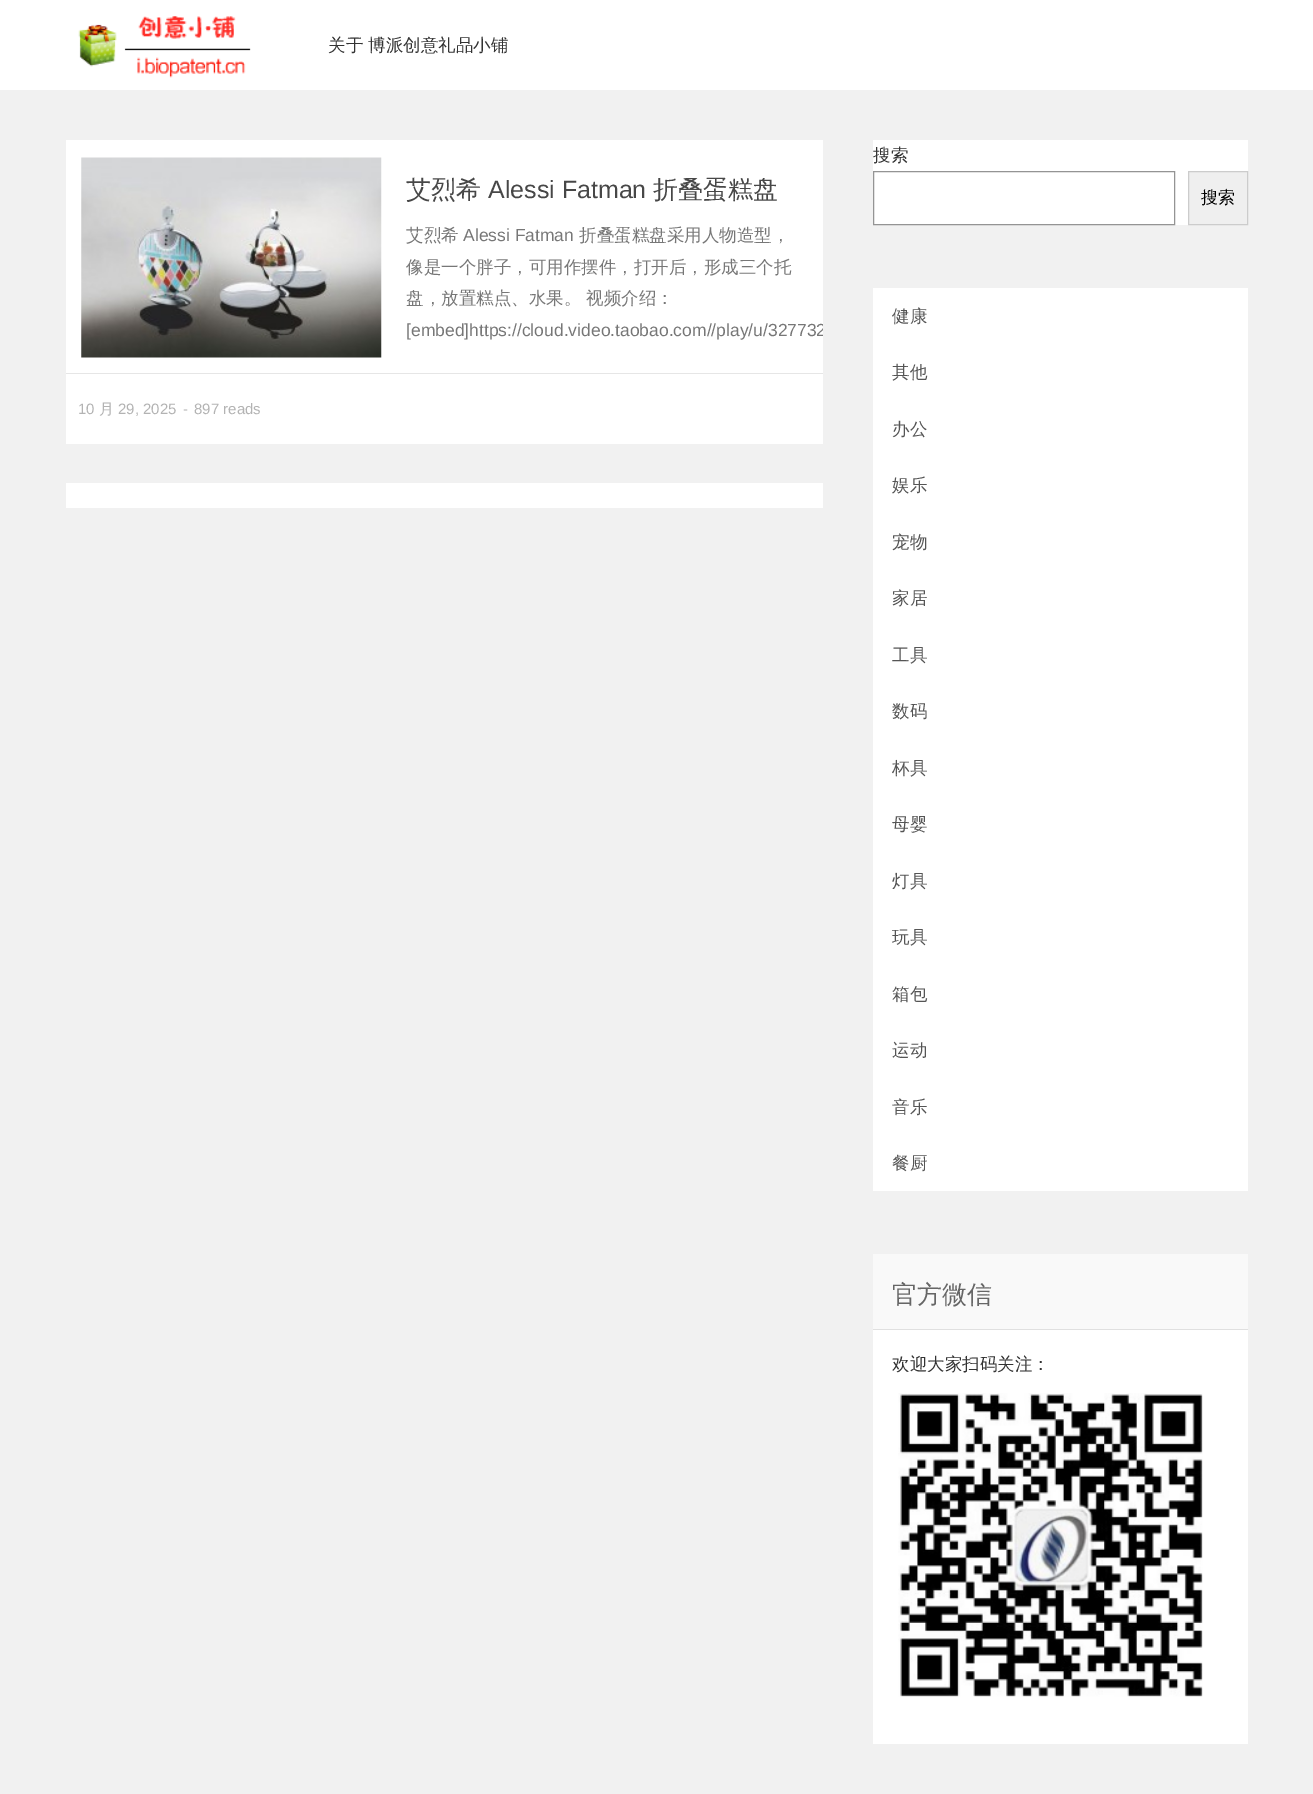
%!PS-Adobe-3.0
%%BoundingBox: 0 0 1313 1794
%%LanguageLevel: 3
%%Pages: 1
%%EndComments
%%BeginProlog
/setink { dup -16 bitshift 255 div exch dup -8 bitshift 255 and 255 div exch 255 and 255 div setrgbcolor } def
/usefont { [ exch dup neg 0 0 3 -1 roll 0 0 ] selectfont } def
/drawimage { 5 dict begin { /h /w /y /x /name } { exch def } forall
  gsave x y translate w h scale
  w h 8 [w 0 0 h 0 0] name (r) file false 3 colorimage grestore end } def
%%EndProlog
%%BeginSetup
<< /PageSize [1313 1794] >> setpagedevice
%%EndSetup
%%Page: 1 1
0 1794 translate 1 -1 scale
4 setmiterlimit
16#F1F1F1 setink
0 0 1313 1794 rectfill
16#FFFFFF setink
0 0 1313 90 rectfill
(img1.raw) 78 16 173 62 drawimage
/WenQuanYiZenHei-Medium 17.5 usefont
16#333333 setink
328 51 moveto (关于 博派创意礼品小铺) show
16#FFFFFF setink
66 140 757 304 rectfill
(img2.raw) 81 157 301 201 drawimage
/WenQuanYiZenHei-Medium 25 usefont
16#474747 setink
406 198 moveto (艾烈希) show
/LiberationSans-Regular 25 usefont
488 198 moveto (Alessi Fatman) show
/WenQuanYiZenHei-Medium 25 usefont
653 198 moveto (折叠蛋糕盘) show
/WenQuanYiZenHei-Medium 17.5 usefont
16#777777 setink
406 241 moveto (艾烈希) show
/LiberationSans-Regular 17.5 usefont
463 241 moveto (Alessi Fatman) show
/WenQuanYiZenHei-Medium 17.5 usefont
[
    [(折叠蛋糕盘采用人物造型，) 579 241]
    [(像是一个胖子，可用作摆件，打开后，形成三个托) 406 273]
    [(盘，放置糕点、水果。) 406 304]
    [(视频介绍：) 586 304]
] { aload pop moveto show } forall
gsave
66 140 757 304 rectclip
/LiberationSans-Regular 17.5 usefont
406 336 moveto ([embed]https://cloud.video.taobao.com//play/u/327732) show
grestore
16#E6E6E6 setink
66 373 757 1 rectfill
/LiberationSans-Regular 15 usefont
16#B3B3B3 setink
78 414 moveto (10) show
/WenQuanYiZenHei-Medium 15 usefont
99 414 moveto (月) show
/LiberationSans-Regular 15 usefont
[
    [(29, 2025) 118 414]
    [(-) 183 414]
    [(897 reads) 194 414]
] { aload pop moveto show } forall
16#FFFFFF setink
66 483 757 25 rectfill
873 140 375 85 rectfill
/WenQuanYiZenHei-Medium 17.5 usefont
16#333333 setink
873 161 moveto (搜索) show
16#949494 setink
873.5 171.5 301 53 rectstroke
16#EFEFEF setink
1188.5 171.5 moveto 1247.5 171.5 lineto 1247.5 224.5 lineto 1188.5 224.5 lineto closepath gsave fill grestore
16#CCCCCC setink
stroke
/WenQuanYiZenHei-Medium 17 usefont
16#000000 setink
1201 203 moveto (搜索) show
16#FFFFFF setink
873 288 375 903 rectfill
/WenQuanYiZenHei-Medium 17.5 usefont
16#555555 setink
[
    [(健康) 892 322]
    [(其他) 892 378]
    [(办公) 892 435]
    [(娱乐) 892 491]
    [(宠物) 892 548]
    [(家居) 892 604]
    [(工具) 892 661]
    [(数码) 892 717]
    [(杯具) 892 774]
    [(母婴) 892 830]
    [(灯具) 892 887]
    [(玩具) 892 943]
    [(箱包) 892 1000]
    [(运动) 892 1056]
    [(音乐) 892 1113]
    [(餐厨) 892 1169]
] { aload pop moveto show } forall
[
    [873 1330 375 414 16#FFFFFF]
    [873 1254 375 75 16#F9F9F9]
    [873 1329 375 1 16#E0E0E0]
] { aload pop setink rectfill } forall
/WenQuanYiZenHei-Medium 25 usefont
16#666666 setink
892 1303 moveto (官方微信) show
/WenQuanYiZenHei-Medium 17.5 usefont
16#333333 setink
892 1370 moveto (欢迎大家扫码关注：) show
(img3.raw) 898 1393 305 304 drawimage
showpage
%%EOF
